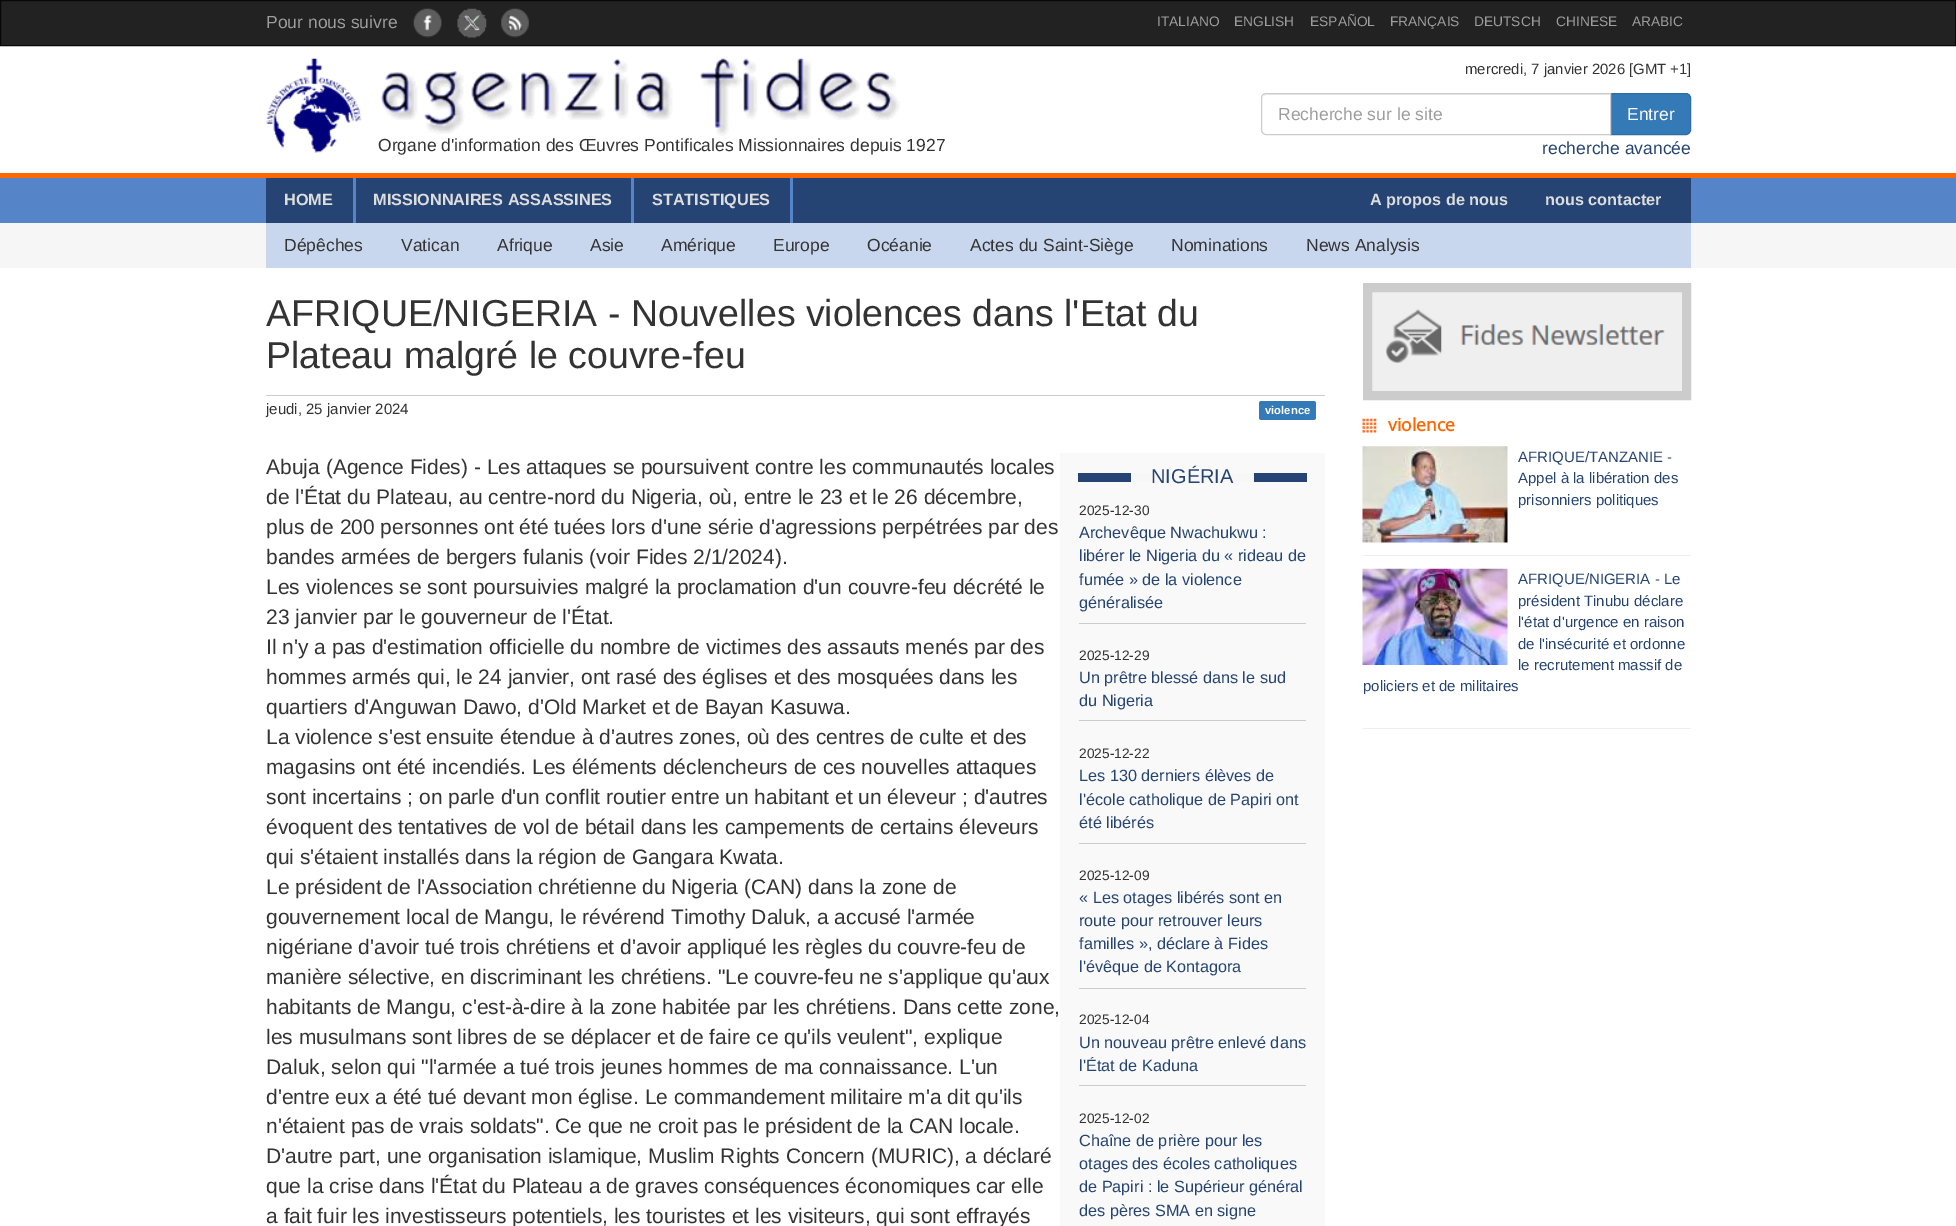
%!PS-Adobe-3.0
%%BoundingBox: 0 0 1956 1226
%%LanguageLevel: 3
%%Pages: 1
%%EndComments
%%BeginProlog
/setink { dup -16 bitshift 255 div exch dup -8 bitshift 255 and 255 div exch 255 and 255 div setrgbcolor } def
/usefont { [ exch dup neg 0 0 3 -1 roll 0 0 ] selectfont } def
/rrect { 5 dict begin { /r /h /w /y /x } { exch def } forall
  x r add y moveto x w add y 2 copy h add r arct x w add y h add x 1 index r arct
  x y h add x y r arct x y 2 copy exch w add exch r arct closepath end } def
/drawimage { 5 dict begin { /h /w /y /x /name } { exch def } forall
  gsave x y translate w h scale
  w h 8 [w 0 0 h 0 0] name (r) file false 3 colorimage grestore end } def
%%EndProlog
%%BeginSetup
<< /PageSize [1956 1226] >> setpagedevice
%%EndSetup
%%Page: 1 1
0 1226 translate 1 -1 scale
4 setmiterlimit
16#FFFFFF setink
0 0 1956 1226 rectfill
16#222222 setink
0.5 0.5 moveto 1955.5 0.5 lineto 1955.5 45.5 lineto 0.5 45.5 lineto closepath gsave fill grestore
16#080808 setink
stroke
/LiberationSans-Regular 17.5 usefont
16#9D9D9D setink
266 28 moveto (Pour nous suivre) show
(img1.raw) 413 8 29 30 drawimage
(img2.raw) 457 8 30 30 drawimage
(img3.raw) 501 8 28 30 drawimage
/LiberationSans-Regular 13.75 usefont
[
    [(ITALIANO) 1157 26]
    [(ENGLISH) 1234 26]
    [(ESPAÑOL) 1310 26]
    [(FRANÇAIS) 1390 26]
    [(DEUTSCH) 1474 26]
    [(CHINESE) 1556 26]
    [(ARABIC) 1632 26]
] { aload pop moveto show } forall
16#FF6600 setink
0 173 1956 5 rectfill
(img4.raw) 266 58 634 95 drawimage
/LiberationSans-Regular 17.5 usefont
16#333333 setink
378 151 moveto (Organe d'information des Œuvres Pontificales Missionnaires depuis 1927) show
/LiberationSans-Regular 14.9 usefont
1465 74 moveto (mercredi, 7 janvier 2026 [GMT +1]) show
16#337AB7 setink
1610.5 93.5 moveto 1686 93.5 lineto 1688.5 93.5 1690.5 95.5 1690.5 98 curveto 1690.5 130 lineto 1690.5 132.5 1688.5 134.5 1686 134.5 curveto 1610.5 134.5 lineto closepath gsave fill grestore
16#2E6DA4 setink
stroke
16#FFFFFF setink
1266 93 moveto 1611 93 lineto 1611 135 lineto 1266 135 lineto 1263 135 1261 133 1261 130 curveto 1261 98 lineto 1261 95 1263 93 1266 93 curveto closepath fill
16#ECECEC setink
1266 95 moveto 1610 95 lineto 1610 94 lineto 1267 94 lineto 1266 94 1264 95 1264 96 curveto closepath fill
16#CCCCCC setink
1266 93.5 moveto 1610.5 93.5 lineto 1610.5 134.5 lineto 1266 134.5 lineto 1263.5 134.5 1261.5 132.5 1261.5 130 curveto 1261.5 98 lineto 1261.5 95.5 1263.5 93.5 1266 93.5 curveto closepath stroke
/LiberationSans-Regular 17.5 usefont
16#9D9D9D setink
1278 120 moveto (Recherche sur le site) show
16#FFFFFF setink
1627 120 moveto (Entrer) show
16#254472 setink
1542 154 moveto (recherche avancée) show
[
    [0 223 1956 45 16#F6F6F6]
    [0 178 1956 45 16#5684C9]
    [266 178 1425 45 16#254473]
    [353 178 3 45 16#5684C9]
] { aload pop setink rectfill } forall
/LiberationSans-Bold 16.25 usefont
16#DDDDDD setink
284 205 moveto (HOME) show
16#5684C9 setink
631 178 3 45 rectfill
16#DDDDDD setink
373 205 moveto (MISSIONNAIRES ASSASSINES) show
16#5684C9 setink
790 178 3 45 rectfill
16#DDDDDD setink
[
    [(STATISTIQUES) 652 205]
    [(A propos de nous) 1370 205]
    [(nous contacter) 1545 205]
] { aload pop moveto show } forall
16#C8D7EE setink
266 223 1425 45 rectfill
/LiberationSans-Regular 17.5 usefont
16#333333 setink
[
    [(Dépêches) 284 251]
    [(Vatican) 401 251]
    [(Afrique) 497 251]
    [(Asie) 590 251]
    [(Amérique) 661 251]
    [(Europe) 773 251]
    [(Océanie) 867 251]
    [(Actes du Saint-Siège) 970 251]
    [(Nominations) 1171 251]
    [(News Analysis) 1306 251]
] { aload pop moveto show } forall
16#CCCCCC setink
266 395 1059 1 rectfill
/LiberationSans-Regular 37.5 usefont
16#333333 setink
266 326 moveto (AFRIQUE/NIGERIA - Nouvelles violences dans l'Etat du) show
266 368 moveto (Plateau malgré le couvre-feu) show
/LiberationSans-Regular 15 usefont
266 414 moveto (jeudi, 25 janvier 2024) show
16#337AB7 setink
1259 401 57 19 2.5 rrect fill
/LiberationSans-Bold 11.25 usefont
16#FFFFFF setink
1265 414 moveto (violence) show
/LiberationSans-Regular 21 usefont
16#333333 setink
[
    [(Abuja \(Agence Fides\) - Les attaques se poursuivent contre les communautés locales) 266 474]
    [(de l'État du Plateau, au centre-nord du Nigeria, où, entre le 23 et le 26 décembre,) 266 504]
    [(plus de 200 personnes ont été tuées lors d'une série d'agressions perpétrées par des) 266 534]
    [(bandes armées de bergers fulanis \(voir Fides 2/1/2024\).) 266 564]
    [(Les violences se sont poursuivies malgré la proclamation d'un couvre-feu décrété le) 266 594]
    [(23 janvier par le gouverneur de l'État.) 266 624]
    [(Il n'y a pas d'estimation officielle du nombre de victimes des assauts menés par des) 266 654]
    [(hommes armés qui, le 24 janvier, ont rasé des églises et des mosquées dans les) 266 684]
    [(quartiers d'Anguwan Dawo, d'Old Market et de Bayan Kasuwa.) 266 714]
    [(La violence s'est ensuite étendue à d'autres zones, où des centres de culte et des) 266 744]
    [(magasins ont été incendiés. Les éléments déclencheurs de ces nouvelles attaques) 266 774]
    [(sont incertains ; on parle d'un conflit routier entre un habitant et un éleveur ; d'autres) 266 804]
    [(évoquent des tentatives de vol de bétail dans les campements de certains éleveurs) 266 834]
    [(qui s'étaient installés dans la région de Gangara Kwata.) 266 864]
    [(Le président de l'Association chrétienne du Nigeria \(CAN\) dans la zone de) 266 894]
    [(gouvernement local de Mangu, le révérend Timothy Daluk, a accusé l'armée) 266 924]
    [(nigériane d'avoir tué trois chrétiens et d'avoir appliqué les règles du couvre-feu de) 266 954]
    [(manière sélective, en discriminant les chrétiens. "Le couvre-feu ne s'applique qu'aux) 266 984]
    [(habitants de Mangu, c'est-à-dire à la zone habitée par les chrétiens. Dans cette zone,) 266 1014]
    [(les musulmans sont libres de se déplacer et de faire ce qu'ils veulent", explique) 266 1044]
    [(Daluk, selon qui "l'armée a tué trois jeunes hommes de ma connaissance. L'un) 266 1074]
    [(d'entre eux a été tué devant mon église. Le commandement militaire m'a dit qu'ils) 266 1104]
    [(n'étaient pas de vrais soldats". Ce que ne croit pas le président de la CAN locale.) 266 1133]
    [(D'autre part, une organisation islamique, Muslim Rights Concern \(MURIC\), a déclaré) 266 1163]
    [(que la crise dans l'État du Plateau a de graves conséquences économiques car elle) 266 1193]
    [(a fait fuir les investisseurs potentiels, les touristes et les visiteurs, qui sont effrayés) 266 1223]
] { aload pop moveto show } forall
[
    [1060 453 265 773 16#F9F9F9]
    [1078 473 229 9 16#254473]
    [1131 473 123 9 16#F7F7F7]
] { aload pop setink rectfill } forall
/LiberationSans-Regular 20 usefont
16#254472 setink
1151 483 moveto (NIGÉRIA) show
16#CCCCCC setink
1079 623 227 1 rectfill
/LiberationSans-Regular 13.75 usefont
16#333333 setink
1079 515 moveto (2025-12-30) show
/LiberationSans-Regular 16.25 usefont
16#254472 setink
[
    [(Archevêque Nwachukwu :) 1079 538]
    [(libérer le Nigeria du « rideau de) 1079 561]
    [(fumée » de la violence) 1079 585]
    [(généralisée) 1079 608]
] { aload pop moveto show } forall
16#CCCCCC setink
1079 720 227 1 rectfill
/LiberationSans-Regular 13.75 usefont
16#333333 setink
1079 660 moveto (2025-12-29) show
/LiberationSans-Regular 16.25 usefont
16#254472 setink
1079 683 moveto (Un prêtre blessé dans le sud) show
1079 706 moveto (du Nigeria) show
16#CCCCCC setink
1079 843 227 1 rectfill
/LiberationSans-Regular 13.75 usefont
16#333333 setink
1079 758 moveto (2025-12-22) show
/LiberationSans-Regular 16.25 usefont
16#254472 setink
[
    [(Les 130 derniers élèves de) 1079 781]
    [(l'école catholique de Papiri ont) 1079 805]
    [(été libérés) 1079 828]
] { aload pop moveto show } forall
16#CCCCCC setink
1079 988 227 1 rectfill
/LiberationSans-Regular 13.75 usefont
16#333333 setink
1079 880 moveto (2025-12-09) show
/LiberationSans-Regular 16.25 usefont
16#254472 setink
[
    [(« Les otages libérés sont en) 1079 903]
    [(route pour retrouver leurs) 1079 926]
    [(familles », déclare à Fides) 1079 949]
    [(l'évêque de Kontagora) 1079 972]
] { aload pop moveto show } forall
16#CCCCCC setink
1079 1085 227 1 rectfill
/LiberationSans-Regular 13.75 usefont
16#333333 setink
1079 1024 moveto (2025-12-04) show
/LiberationSans-Regular 16.25 usefont
16#254472 setink
1079 1048 moveto (Un nouveau prêtre enlevé dans) show
1079 1071 moveto (l'État de Kaduna) show
/LiberationSans-Regular 13.75 usefont
16#333333 setink
1079 1123 moveto (2025-12-02) show
/LiberationSans-Regular 16.25 usefont
16#254472 setink
[
    [(Chaîne de prière pour les) 1079 1146]
    [(otages des écoles catholiques) 1079 1169]
    [(de Papiri : le Supérieur général) 1079 1192]
    [(des pères SMA en signe) 1079 1216]
] { aload pop moveto show } forall
16#EFEFEF setink
1367.5 287.5 moveto 1686.5 287.5 lineto 1686.5 395.5 lineto 1367.5 395.5 lineto closepath gsave fill grestore
16#CCCCCC setink
9 setlinewidth
stroke
(img5.raw) 1386 309 279 54 drawimage
(img6.raw) 1362 418 15 15 drawimage
/OpenSans-Bold 17.5 usefont
16#FF6600 setink
1388 431 moveto (violence) show
(img7.raw) 1362 446 146 97 drawimage
/LiberationSans-Regular 15 usefont
16#254472 setink
[
    [(AFRIQUE/TANZANIE -) 1518 462]
    [(Appel à la libération des) 1518 483]
    [(prisonniers politiques) 1518 505]
] { aload pop moveto show } forall
16#EEEEEE setink
1363 555 328 1 rectfill
(img8.raw) 1362 568 146 97 drawimage
16#254472 setink
[
    [(AFRIQUE/NIGERIA - Le) 1518 584]
    [(président Tinubu déclare) 1518 606]
    [(l'état d'urgence en raison) 1518 627]
    [(de l'insécurité et ordonne) 1518 649]
    [(le recrutement massif de) 1518 670]
    [(policiers et de militaires) 1363 691]
] { aload pop moveto show } forall
16#EEEEEE setink
1363 728 328 1 rectfill
showpage
%%EOF
